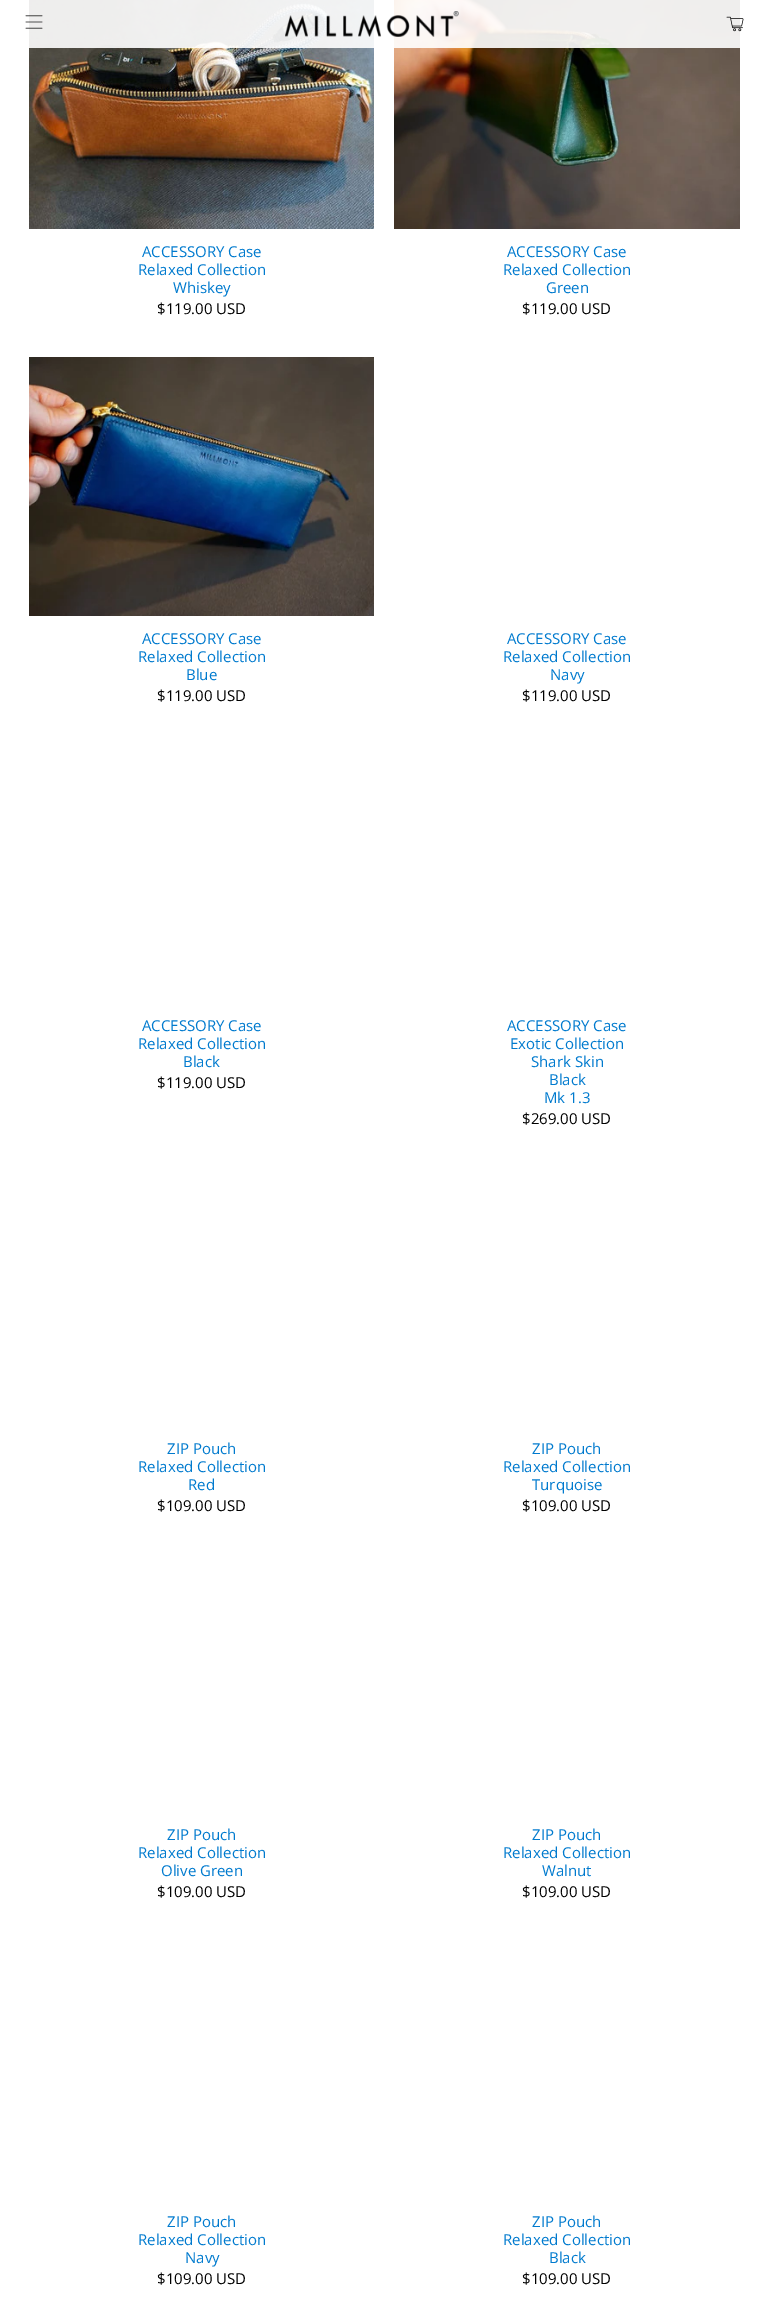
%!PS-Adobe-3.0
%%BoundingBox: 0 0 769 2312
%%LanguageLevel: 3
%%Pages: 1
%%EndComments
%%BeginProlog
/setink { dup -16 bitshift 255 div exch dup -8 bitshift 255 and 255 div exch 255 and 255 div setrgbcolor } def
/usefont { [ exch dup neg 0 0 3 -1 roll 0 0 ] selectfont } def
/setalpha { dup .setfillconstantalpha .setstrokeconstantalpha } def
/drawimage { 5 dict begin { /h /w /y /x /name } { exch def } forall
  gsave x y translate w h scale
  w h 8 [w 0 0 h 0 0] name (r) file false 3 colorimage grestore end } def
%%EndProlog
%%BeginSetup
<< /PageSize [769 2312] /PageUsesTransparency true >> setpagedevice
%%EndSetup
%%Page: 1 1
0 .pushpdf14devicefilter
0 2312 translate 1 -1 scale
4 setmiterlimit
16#FFFFFF setink
0 0 769 2312 rectfill
(img4.raw) 29 0 345 229 drawimage
(img5.raw) 394 0 346 229 drawimage
0.9 setalpha
29 0 711 48 rectfill
1 setalpha
(img1.raw) 25 15 18 14 drawimage
(img2.raw) 285 11 174 26 drawimage
(img3.raw) 726 16 18 16 drawimage
/OpenSans-Regular 15 usefont
16#007ACE setink
[
    [(ACCESSORY Case) 142 257]
    [(Relaxed Collection) 138 275]
    [(Whiskey) 173 293]
] { aload pop moveto show } forall
16#000000 setink
157 314 moveto ($119.00 USD) show
16#007ACE setink
[
    [(ACCESSORY Case) 507 257]
    [(Relaxed Collection) 503 275]
    [(Green) 546 293]
] { aload pop moveto show } forall
16#000000 setink
522 314 moveto ($119.00 USD) show
(img6.raw) 29 357 345 259 drawimage
16#007ACE setink
[
    [(ACCESSORY Case) 142 644]
    [(Relaxed Collection) 138 662]
    [(Blue) 186 680]
] { aload pop moveto show } forall
16#000000 setink
157 701 moveto ($119.00 USD) show
16#007ACE setink
[
    [(ACCESSORY Case) 507 644]
    [(Relaxed Collection) 503 662]
    [(Navy) 550 680]
] { aload pop moveto show } forall
16#000000 setink
522 701 moveto ($119.00 USD) show
16#007ACE setink
[
    [(ACCESSORY Case) 142 1031]
    [(Relaxed Collection) 138 1049]
    [(Black) 183 1067]
] { aload pop moveto show } forall
16#000000 setink
157 1088 moveto ($119.00 USD) show
16#007ACE setink
[
    [(ACCESSORY Case) 507 1031]
    [(Exotic Collection) 510 1049]
    [(Shark Skin) 531 1067]
    [(Black) 549 1085]
    [(Mk 1.3) 544 1103]
] { aload pop moveto show } forall
16#000000 setink
522 1124 moveto ($269.00 USD) show
16#007ACE setink
[
    [(ZIP Pouch) 167 1454]
    [(Relaxed Collection) 138 1472]
    [(Red) 188 1490]
] { aload pop moveto show } forall
16#000000 setink
157 1511 moveto ($109.00 USD) show
16#007ACE setink
[
    [(ZIP Pouch) 532 1454]
    [(Relaxed Collection) 503 1472]
    [(Turquoise) 532 1490]
] { aload pop moveto show } forall
16#000000 setink
522 1511 moveto ($109.00 USD) show
16#007ACE setink
[
    [(ZIP Pouch) 167 1840]
    [(Relaxed Collection) 138 1858]
    [(Olive Green) 161 1876]
] { aload pop moveto show } forall
16#000000 setink
157 1897 moveto ($109.00 USD) show
16#007ACE setink
[
    [(ZIP Pouch) 532 1840]
    [(Relaxed Collection) 503 1858]
    [(Walnut) 542 1876]
] { aload pop moveto show } forall
16#000000 setink
522 1897 moveto ($109.00 USD) show
16#007ACE setink
[
    [(ZIP Pouch) 167 2227]
    [(Relaxed Collection) 138 2245]
    [(Navy) 185 2263]
] { aload pop moveto show } forall
16#000000 setink
157 2284 moveto ($109.00 USD) show
16#007ACE setink
[
    [(ZIP Pouch) 532 2227]
    [(Relaxed Collection) 503 2245]
    [(Black) 549 2263]
] { aload pop moveto show } forall
16#000000 setink
522 2284 moveto ($109.00 USD) show
.poppdf14devicefilter showpage
%%EOF
